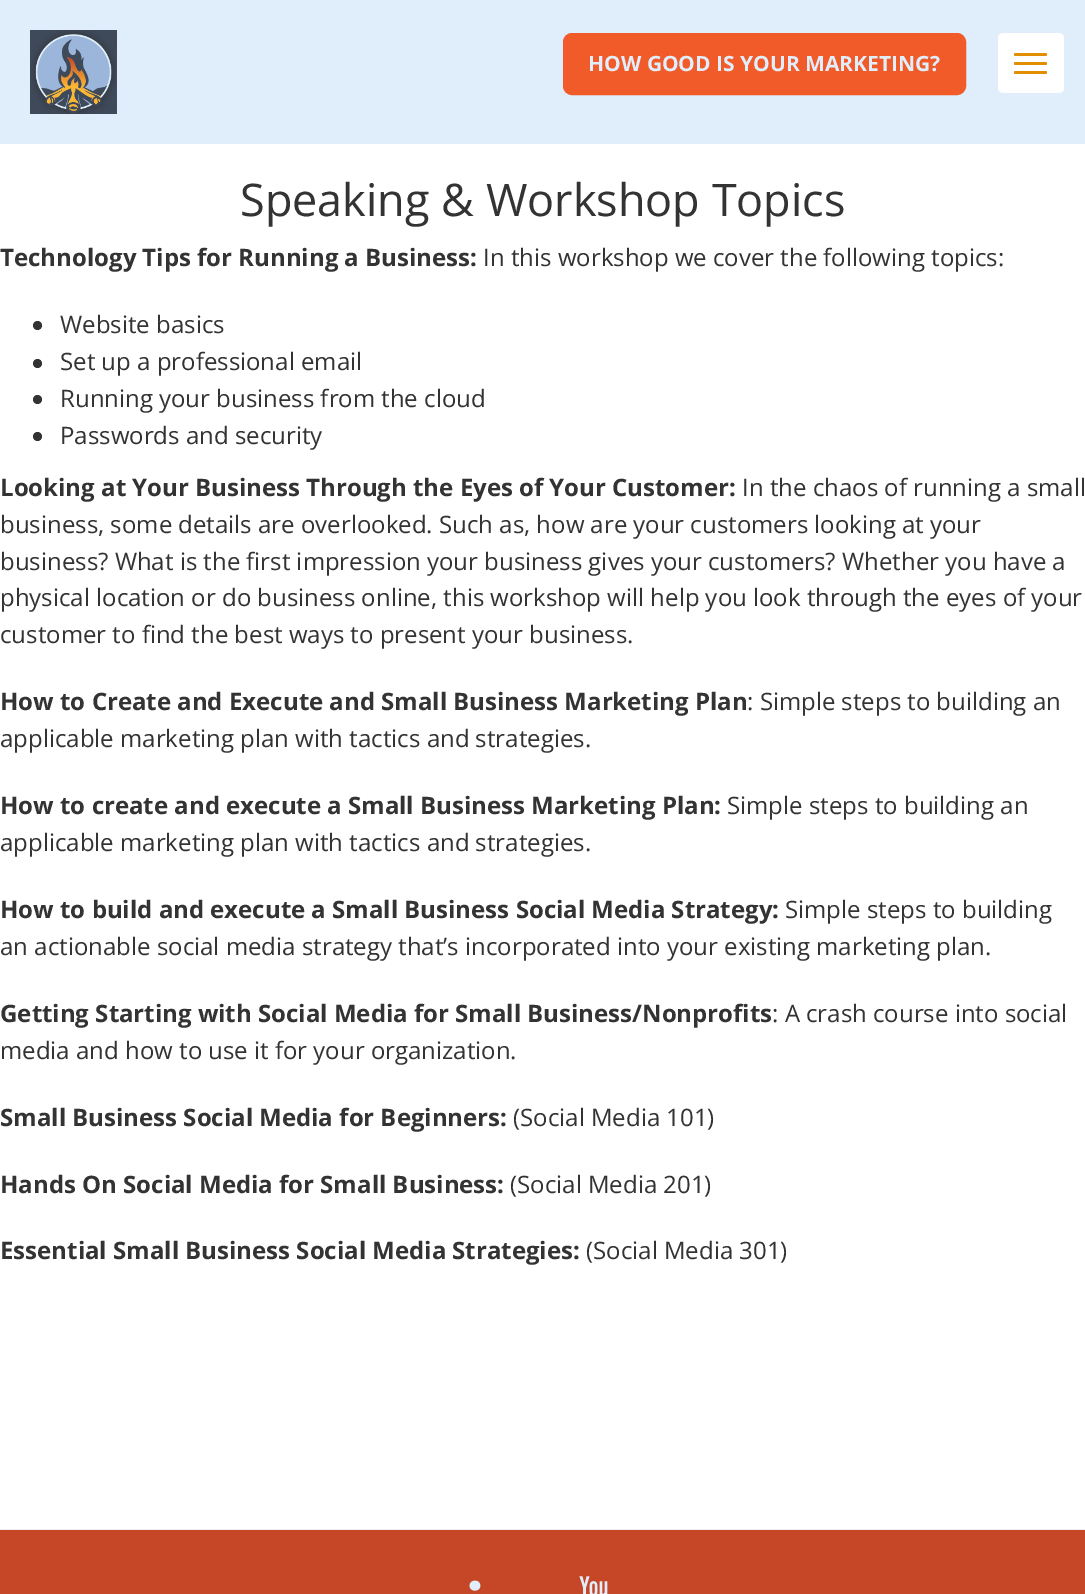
%!PS-Adobe-3.0
%%BoundingBox: 0 0 1085 1594
%%LanguageLevel: 3
%%Pages: 1
%%EndComments
%%BeginProlog
/setink { dup -16 bitshift 255 div exch dup -8 bitshift 255 and 255 div exch 255 and 255 div setrgbcolor } def
/usefont { [ exch dup neg 0 0 3 -1 roll 0 0 ] selectfont } def
/disc { newpath 0 360 arc closepath } def
/rrect { 5 dict begin { /r /h /w /y /x } { exch def } forall
  x r add y moveto x w add y 2 copy h add r arct x w add y h add x 1 index r arct
  x y h add x y r arct x y 2 copy exch w add exch r arct closepath end } def
/drawimage { 5 dict begin { /h /w /y /x /name } { exch def } forall
  gsave x y translate w h scale
  w h 8 [w 0 0 h 0 0] name (r) file false 3 colorimage grestore end } def
%%EndProlog
%%BeginSetup
<< /PageSize [1085 1594] >> setpagedevice
%%EndSetup
%%Page: 1 1
0 1594 translate 1 -1 scale
4 setmiterlimit
16#FFFFFF setink
0 0 1085 1594 rectfill
16#DFEEFA setink
0 0 1085 144 rectfill
(img1.raw) 30 30 87 84 drawimage
16#F15A29 setink
564 34 401 60 8 rrect gsave fill grestore
2 setlinewidth
stroke
/OpenSans-Bold 21 usefont
16#DFEEFA setink
588 71 moveto (HOW GOOD IS YOUR MARKETING?) show
16#FFFFFF setink
998 33 66 60 5 rrect fill
16#E18F00 setink
1014 53 33 3 1.5 rrect fill
1014 62 33 3 1.5 rrect fill
1014 71 33 3 1.5 rrect fill
/OpenSans-Regular 45 usefont
16#333333 setink
240 216 moveto (Speaking & Workshop Topics) show
/OpenSans-Bold 24 usefont
0 266 moveto (Technology Tips for Running a Business:) show
/OpenSans-Regular 24 usefont
483 266 moveto (In this workshop we cover the following topics:) show
37.5 325.5 4.5 disc fill
60 333 moveto (Website basics) show
37.5 363.5 4.5 disc fill
60 370 moveto (Set up a professional email) show
37.5 399.5 4.5 disc fill
60 407 moveto (Running your business from the cloud) show
37.5 436.5 4.5 disc fill
60 444 moveto (Passwords and security) show
/OpenSans-Bold 24 usefont
0 496 moveto (Looking at Your Business Through the Eyes of Your Customer:) show
/OpenSans-Regular 24 usefont
[
    [(In the chaos of running a small) 742 496]
    [(business, some details are overlooked. Such as, how are your customers looking at your) 0 533]
    [(business? What is the first impression your business gives your customers? Whether you have a) 0 570]
    [(physical location or do business online, this workshop will help you look through the eyes of your) 0 606]
    [(customer to find the best ways to present your business.) 0 643]
] { aload pop moveto show } forall
/OpenSans-Bold 24 usefont
0 710 moveto (How to Create and Execute and Small Business Marketing Plan) show
/OpenSans-Regular 24 usefont
747 710 moveto (: Simple steps to building an) show
0 747 moveto (applicable marketing plan with tactics and strategies.) show
/OpenSans-Bold 24 usefont
0 814 moveto (How to create and execute a Small Business Marketing Plan:) show
/OpenSans-Regular 24 usefont
727 814 moveto (Simple steps to building an) show
0 851 moveto (applicable marketing plan with tactics and strategies.) show
/OpenSans-Bold 24 usefont
0 918 moveto (How to build and execute a Small Business Social Media Strategy:) show
/OpenSans-Regular 24 usefont
785 918 moveto (Simple steps to building) show
0 955 moveto (an actionable social media strategy that’s incorporated into your existing marketing plan.) show
/OpenSans-Bold 24 usefont
0 1022 moveto (Getting Starting with Social Media for Small Business/Nonprofits) show
/OpenSans-Regular 24 usefont
772 1022 moveto (: A crash course into social) show
0 1059 moveto (media and how to use it for your organization.) show
/OpenSans-Bold 24 usefont
0 1126 moveto (Small Business Social Media for Beginners:) show
/OpenSans-Regular 24 usefont
513 1126 moveto (\(Social Media 101\)) show
/OpenSans-Bold 24 usefont
0 1193 moveto (Hands On Social Media for Small Business:) show
/OpenSans-Regular 24 usefont
510 1193 moveto (\(Social Media 201\)) show
/OpenSans-Bold 24 usefont
0 1259 moveto (Essential Small Business Social Media Strategies:) show
/OpenSans-Regular 24 usefont
586 1259 moveto (\(Social Media 301\)) show
16#EDEDED setink
0 1529 1085 1 rectfill
16#C64727 setink
0 1530 1085 64 rectfill
(img2.raw) 469 1580 12 11 drawimage
(img3.raw) 579 1576 29 18 drawimage
showpage
%%EOF
